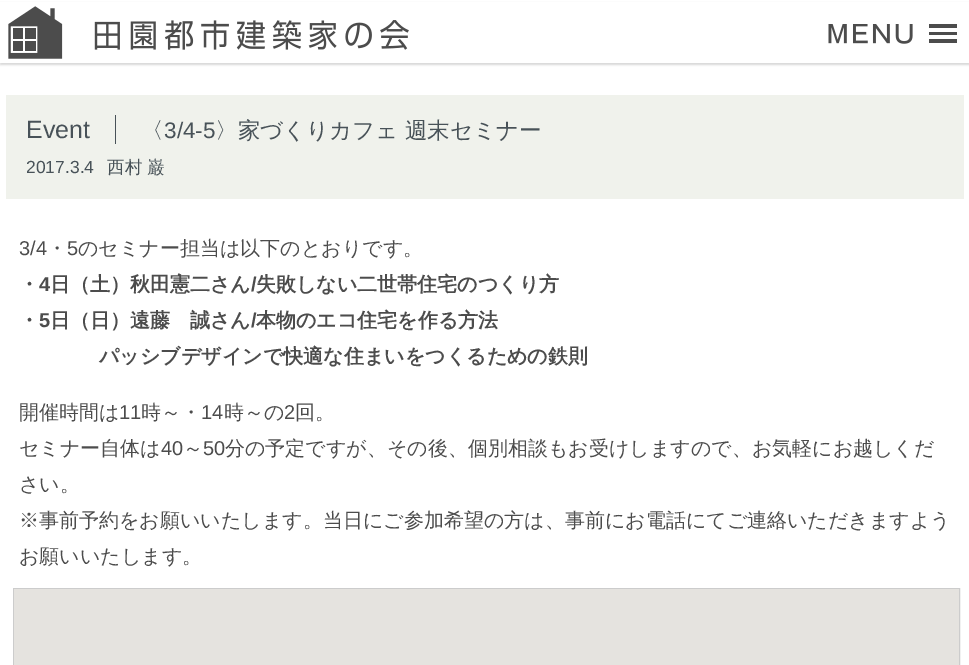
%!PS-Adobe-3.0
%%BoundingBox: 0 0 969 665
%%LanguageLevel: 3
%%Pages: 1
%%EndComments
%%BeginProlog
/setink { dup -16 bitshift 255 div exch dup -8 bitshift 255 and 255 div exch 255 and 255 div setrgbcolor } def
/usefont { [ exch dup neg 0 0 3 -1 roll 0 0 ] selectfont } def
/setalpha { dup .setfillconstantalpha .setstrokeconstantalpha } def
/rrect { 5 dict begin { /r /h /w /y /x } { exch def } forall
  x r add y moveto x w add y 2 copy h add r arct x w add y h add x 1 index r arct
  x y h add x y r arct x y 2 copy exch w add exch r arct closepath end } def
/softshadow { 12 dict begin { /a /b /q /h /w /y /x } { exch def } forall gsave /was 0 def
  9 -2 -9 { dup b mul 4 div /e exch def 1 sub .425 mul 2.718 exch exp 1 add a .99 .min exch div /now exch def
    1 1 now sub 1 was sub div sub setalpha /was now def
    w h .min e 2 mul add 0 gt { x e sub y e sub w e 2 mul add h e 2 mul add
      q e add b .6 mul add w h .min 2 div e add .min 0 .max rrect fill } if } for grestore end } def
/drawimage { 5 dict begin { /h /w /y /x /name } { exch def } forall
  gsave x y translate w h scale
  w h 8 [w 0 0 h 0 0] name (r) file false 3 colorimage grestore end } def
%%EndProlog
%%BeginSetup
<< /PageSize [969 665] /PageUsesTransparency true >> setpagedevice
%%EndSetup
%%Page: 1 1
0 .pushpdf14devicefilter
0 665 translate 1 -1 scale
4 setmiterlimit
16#FFFFFF setink
0 0 969 665 rectfill
16#000000 setink
0 3 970 62 0 1 0.15 softshadow
16#FFFFFF setink
0 2 969 61 rectfill
(img1.raw) 8 6 401 53 drawimage
(img2.raw) 828 24 129 20 drawimage
16#F0F2EC setink
6 95 958 104 rectfill
16#485258 setink
115 115 1 29 rectfill
/LiberationSans-Regular 25 usefont
26 138 moveto (Event) show
/WenQuanYiZenHei-Medium 22.5 usefont
141 138 moveto (〈) show
/LiberationSans-Regular 22.5 usefont
164 138 moveto (3/4-5) show
/WenQuanYiZenHei-Medium 22.5 usefont
215 138 moveto (〉家づくりカフェ 週末セミナー) show
/LiberationSans-Regular 17.5 usefont
26 173 moveto (2017.3.4) show
/WenQuanYiZenHei-Medium 17.5 usefont
107 173 moveto (西村 巌) show
/LiberationSans-Regular 20 usefont
16#4C4C4C setink
19 255 moveto (3/4) show
/WenQuanYiZenHei-Medium 20 usefont
47 255 moveto (・) show
/LiberationSans-Regular 20 usefont
67 255 moveto (5) show
/WenQuanYiZenHei-Medium 20 usefont
78 255 moveto (のセミナー担当は以下のとおりです。) show
/WenQuanYiZenHei-Bold 20 usefont
19 291 moveto (・) show
/LiberationSans-Bold 20 usefont
39 291 moveto (4) show
/WenQuanYiZenHei-Bold 20 usefont
50 291 moveto (日（土）秋田憲二さん) show
/LiberationSans-Bold 20 usefont
251 291 moveto (/) show
/WenQuanYiZenHei-Bold 20 usefont
256 291 moveto (失敗しない二世帯住宅のつくり方) show
19 327 moveto (・) show
/LiberationSans-Bold 20 usefont
39 327 moveto (5) show
/WenQuanYiZenHei-Bold 20 usefont
50 327 moveto (日（日）遠藤　誠さん) show
/LiberationSans-Bold 20 usefont
251 327 moveto (/) show
/WenQuanYiZenHei-Bold 20 usefont
256 327 moveto (本物のエコ住宅を作る方法) show
99 363 moveto (パッシブデザインで快適な住まいをつくるための鉄則) show
/WenQuanYiZenHei-Medium 20 usefont
19 419 moveto (開催時間は) show
/LiberationSans-Regular 20 usefont
119 419 moveto (11) show
/WenQuanYiZenHei-Medium 20 usefont
141 419 moveto (時～・) show
/LiberationSans-Regular 20 usefont
201 419 moveto (14) show
/WenQuanYiZenHei-Medium 20 usefont
224 419 moveto (時～の) show
/LiberationSans-Regular 20 usefont
284 419 moveto (2) show
/WenQuanYiZenHei-Medium 20 usefont
295 419 moveto (回。) show
19 455 moveto (セミナー自体は) show
/LiberationSans-Regular 20 usefont
161 455 moveto (40) show
/WenQuanYiZenHei-Medium 20 usefont
183 455 moveto (～) show
/LiberationSans-Regular 20 usefont
203 455 moveto (50) show
/WenQuanYiZenHei-Medium 20 usefont
[
    [(分の予定ですが、その後、個別相談もお受けしますので、お気軽にお越しくだ) 225 455]
    [(さい。) 19 491]
    [(※事前予約をお願いいたします。当日にご参加希望の方は、事前にお電話にてご連絡いただきますよう) 19 527]
    [(お願いいたします。) 19 563]
] { aload pop moveto show } forall
16#CCCCCC setink
13.5 588.5 946 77 rectstroke
16#E5E3DF setink
14 589 945 76 rectfill
.poppdf14devicefilter showpage
%%EOF
